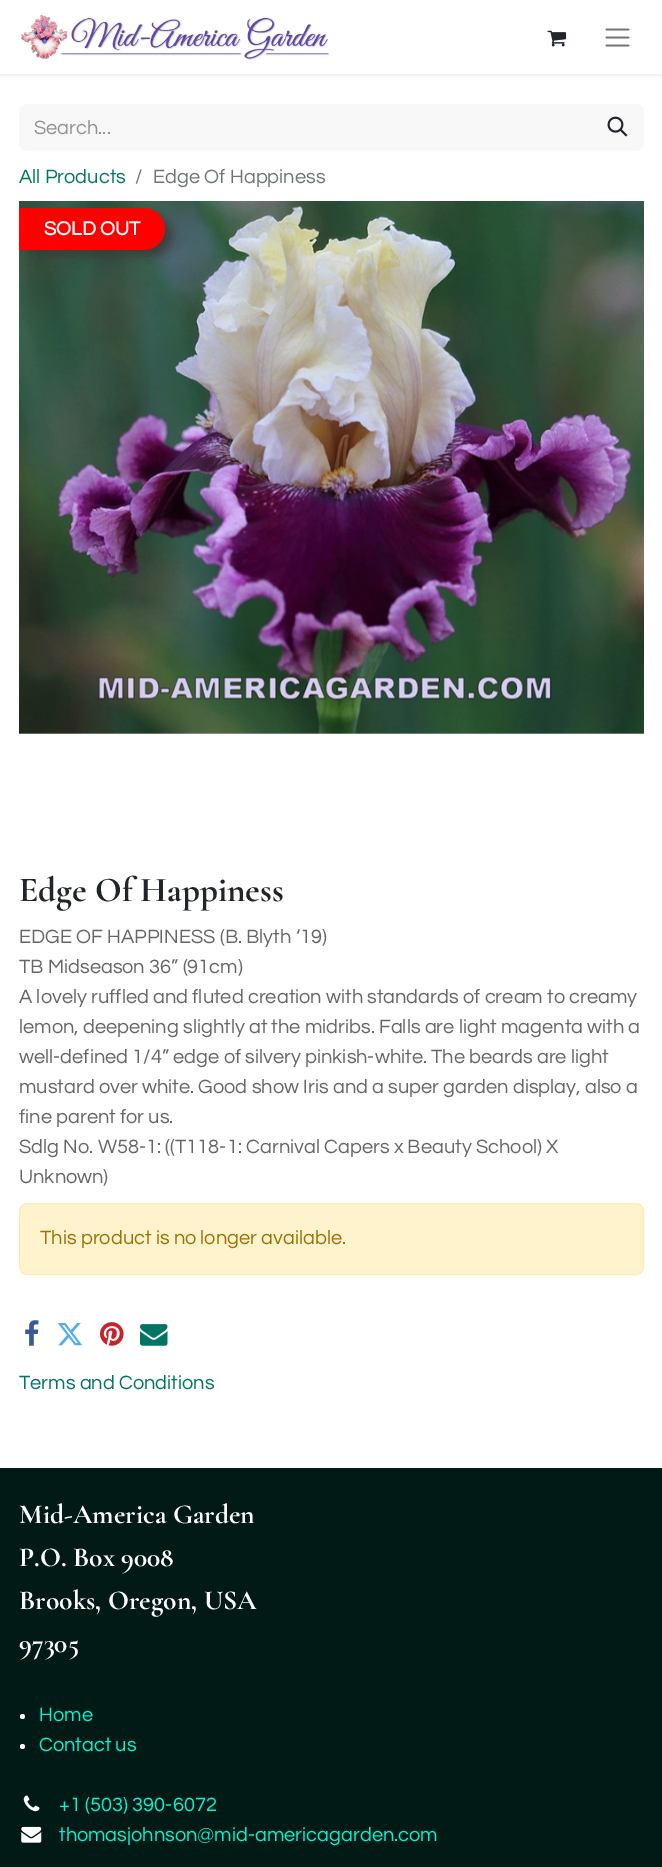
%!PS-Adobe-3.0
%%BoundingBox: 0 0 662 1867
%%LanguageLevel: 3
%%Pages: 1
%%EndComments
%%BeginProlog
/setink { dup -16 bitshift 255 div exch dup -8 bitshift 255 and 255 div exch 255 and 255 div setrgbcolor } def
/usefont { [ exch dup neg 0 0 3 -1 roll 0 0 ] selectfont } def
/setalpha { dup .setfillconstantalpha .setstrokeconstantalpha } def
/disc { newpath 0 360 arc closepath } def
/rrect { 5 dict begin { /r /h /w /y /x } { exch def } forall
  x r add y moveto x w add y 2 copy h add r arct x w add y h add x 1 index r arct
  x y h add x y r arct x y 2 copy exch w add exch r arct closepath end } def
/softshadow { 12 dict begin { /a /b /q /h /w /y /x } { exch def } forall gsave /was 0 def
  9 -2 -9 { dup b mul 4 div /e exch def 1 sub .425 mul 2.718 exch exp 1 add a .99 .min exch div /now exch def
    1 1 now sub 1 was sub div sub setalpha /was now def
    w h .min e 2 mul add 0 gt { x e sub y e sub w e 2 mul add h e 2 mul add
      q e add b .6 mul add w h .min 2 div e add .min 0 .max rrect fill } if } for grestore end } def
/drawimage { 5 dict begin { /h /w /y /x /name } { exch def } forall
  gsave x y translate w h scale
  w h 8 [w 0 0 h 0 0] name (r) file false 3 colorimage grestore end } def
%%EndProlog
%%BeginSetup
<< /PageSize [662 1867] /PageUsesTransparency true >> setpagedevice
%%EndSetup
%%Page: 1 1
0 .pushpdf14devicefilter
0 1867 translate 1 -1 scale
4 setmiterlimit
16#FFFFFF setink
0 0 662 1867 rectfill
16#000000 setink
0 1 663 74 0 2 0.1 softshadow
16#FFFFFF setink
0 0 662 74 rectfill
(img1.raw) 21 15 309 45 drawimage
(img2.raw) 547 30 20 17 drawimage
(img3.raw) 605 28 25 19 drawimage
16#F8F8F8 setink
27 104 moveto 593 104 lineto 593 151 lineto 27 151 lineto 22.5 151 19 147.5 19 143 curveto 19 112 lineto 19 107.5 22.5 104 27 104 curveto closepath fill
/Questrial-Regular 20 usefont
16#909294 setink
34 134 moveto (Search...) show
16#F8F8F8 setink
591 104 moveto 636 104 lineto 640.5 104 644 107.5 644 112 curveto 644 143 lineto 644 147.5 640.5 151 636 151 curveto 591 151 lineto closepath fill
(img4.raw) 607 116 21 21 drawimage
16#007564 setink
19 183 moveto (All Products) show
16#6C757D setink
135 183 moveto (/) show
153 183 moveto (Edge Of Happiness) show
(img5.raw) 19 201 625 533 drawimage
gsave
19 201 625 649 rectclip
16#3A3A3A setink
25 214 146 42 21 6 1 softshadow
grestore
16#FF0000 setink
19 208 moveto 144 208 lineto 155.5 208 165 217.5 165 229 curveto 165 240.5 155.5 250 144 250 curveto 19 250 lineto closepath fill
/Questrial-Bold 20 usefont
16#FFFFFF setink
44 235 moveto (SOLD OUT) show
/CormorantGaramond-Bold 35 usefont
16#212529 setink
19 901 moveto (Edge Of Happiness) show
/Questrial-Regular 20 usefont
16#646669 setink
[
    [(EDGE OF HAPPINESS \(B. Blyth ‘19\)) 19 943]
    [(TB Midseason 36” \(91cm\)) 19 973]
    [(A lovely ruffled and fluted creation with standards of cream to creamy) 19 1003]
    [(lemon, deepening slightly at the midribs. Falls are light magenta with a) 19 1033]
    [(well-defined 1/4” edge of silvery pinkish-white. The beards are light) 19 1063]
    [(mustard over white. Good show Iris and a super garden display, also a) 19 1093]
    [(fine parent for us.) 19 1123]
    [(Sdlg No. W58-1: \(\(T118-1: Carnival Capers x Beauty School\) X) 19 1153]
    [(Unknown\)) 19 1183]
] { aload pop moveto show } forall
16#FFF3CD setink
19.5 1203.5 624 71 7.5 rrect gsave fill grestore
16#FFECB5 setink
stroke
16#997404 setink
40 1244 moveto (This product is no longer available.) show
(img6.raw) 25 1320 14 26 drawimage
(img7.raw) 57 1323 26 23 drawimage
(img8.raw) 100 1322 24 24 drawimage
(img9.raw) 140 1324 28 22 drawimage
16#007564 setink
19 1389 moveto (Terms and Conditions) show
16#011A16 setink
0 1468 662 399 rectfill
/CormorantGaramond-Bold 27.5 usefont
16#FFFFFF setink
[
    [(Mid-America Garden) 19 1523]
    [(P.O. Box 9008) 19 1566]
    [(Brooks, Oregon, USA) 19 1609]
    [(97305) 19 1652]
] { aload pop moveto show } forall
22.5 1716.5 2.5 disc fill
/Questrial-Regular 20 usefont
16#00F5D1 setink
39 1721 moveto (Home) show
16#FFFFFF setink
22.5 1746.5 2.5 disc fill
16#00F5D1 setink
39 1751 moveto (Contact us) show
(img10.raw) 23 1795 17 17 drawimage
59 1811 moveto (+1 \(503\) 390-6072) show
(img11.raw) 21 1826 21 17 drawimage
59 1841 moveto (thomasjohnson@mid-americagarden.com) show
.poppdf14devicefilter showpage
%%EOF
